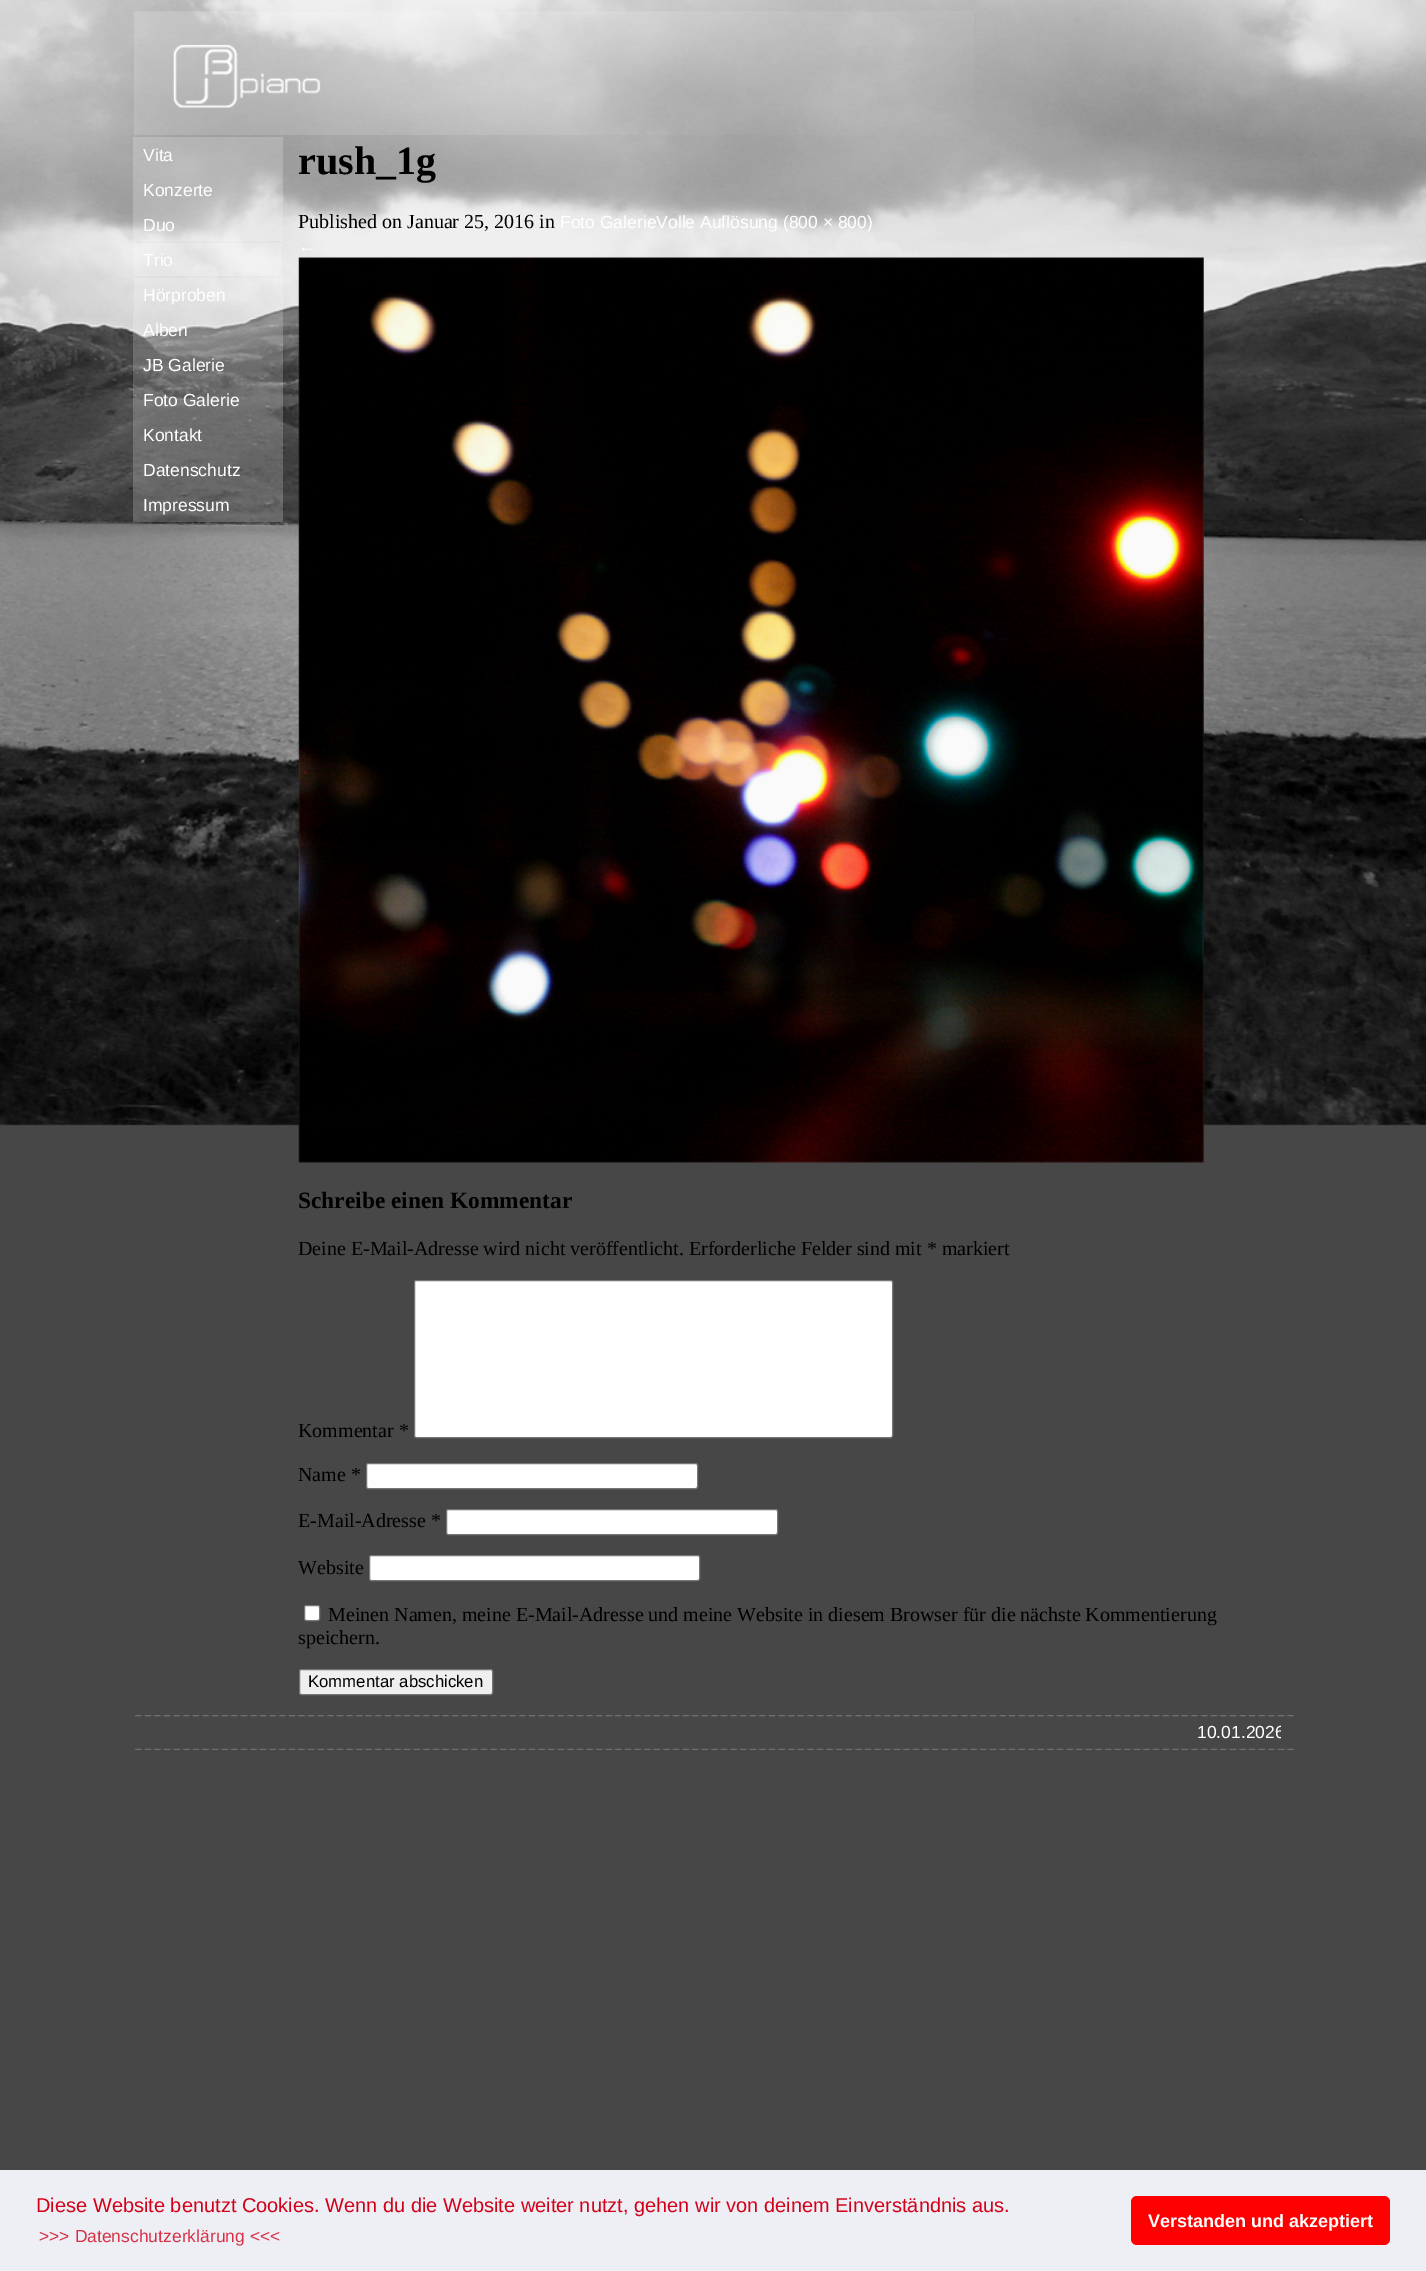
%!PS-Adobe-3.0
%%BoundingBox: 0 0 1426 2271
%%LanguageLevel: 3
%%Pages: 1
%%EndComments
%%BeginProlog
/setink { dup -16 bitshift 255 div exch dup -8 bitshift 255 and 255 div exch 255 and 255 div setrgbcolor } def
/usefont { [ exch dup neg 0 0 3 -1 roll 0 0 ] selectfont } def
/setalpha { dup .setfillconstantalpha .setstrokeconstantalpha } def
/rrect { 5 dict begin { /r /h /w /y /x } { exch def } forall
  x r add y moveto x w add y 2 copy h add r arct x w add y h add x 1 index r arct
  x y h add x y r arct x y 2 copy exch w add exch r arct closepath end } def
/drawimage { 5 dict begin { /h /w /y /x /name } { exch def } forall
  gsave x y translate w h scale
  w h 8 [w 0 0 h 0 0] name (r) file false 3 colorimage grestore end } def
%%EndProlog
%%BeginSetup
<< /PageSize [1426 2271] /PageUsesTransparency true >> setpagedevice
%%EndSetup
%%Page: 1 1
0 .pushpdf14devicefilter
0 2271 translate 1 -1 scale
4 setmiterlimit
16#474747 setink
0 0 1426 2271 rectfill
(img1.raw) 0 0 1426 1126 drawimage
(img2.raw) 134 11 840 124 drawimage
0.2 setalpha
16#FFFFFF setink
133 137 150 35 rectfill
/LiberationSans-Regular 17.5 usefont
1 setalpha
143 161 moveto (Vita) show
0.2 setalpha
133 172 150 35 rectfill
1 setalpha
143 196 moveto (Konzerte) show
0.2 setalpha
133 207 150 34 rectfill
1 setalpha
143 231 moveto (Duo) show
0.2 setalpha
134 243 148 33 rectfill
1 setalpha
143 266 moveto (Trio) show
0.2 setalpha
134 278 149 34 rectfill
1 setalpha
143 301 moveto (Hörproben) show
0.2 setalpha
133 312 150 35 rectfill
1 setalpha
143 336 moveto (Alben) show
0.2 setalpha
133 347 150 35 rectfill
1 setalpha
143 371 moveto (JB Galerie) show
0.2 setalpha
133 382 150 35 rectfill
1 setalpha
143 406 moveto (Foto Galerie) show
0.2 setalpha
133 417 150 35 rectfill
1 setalpha
143 441 moveto (Kontakt) show
0.2 setalpha
133 452 150 35 rectfill
1 setalpha
143 476 moveto (Datenschutz) show
0.2 setalpha
133 487 150 35 rectfill
1 setalpha
143 511 moveto (Impressum) show
/LiberationSerif-Bold 40 usefont
16#000000 setink
298 174 moveto (rush_1g) show
/LiberationSerif-Regular 20 usefont
298 228 moveto (Published on Januar 25, 2016 in) show
/LiberationSans-Regular 17.5 usefont
16#FFFFFF setink
560 228 moveto (Foto GalerieVolle Auflösung \(800 × 800\)) show
298 252 moveto (←) show
(img3.raw) 298 257 906 906 drawimage
/LiberationSerif-Bold 23.4 usefont
16#000000 setink
298 1208 moveto (Schreibe einen Kommentar) show
/LiberationSerif-Regular 20 usefont
298 1255 moveto (Deine E-Mail-Adresse wird nicht veröffentlicht. Erforderliche Felder sind mit * markiert) show
298 1437 moveto (Kommentar *) show
16#FFFFFF setink
414.5 1280.5 478 157 2 rrect gsave fill grestore
16#767676 setink
stroke
16#000000 setink
298 1481 moveto (Name *) show
16#FFFFFF setink
366.5 1463.5 331 25 2 rrect gsave fill grestore
16#767676 setink
stroke
16#000000 setink
298 1527 moveto (E-Mail-Adresse *) show
16#FFFFFF setink
446.5 1509.5 331 25 2 rrect gsave fill grestore
16#767676 setink
stroke
16#000000 setink
298 1574 moveto (Website) show
16#FFFFFF setink
369.5 1555.5 330 25 2 rrect gsave fill grestore
16#767676 setink
stroke
16#FFFFFF setink
304.5 1605.5 15 15 2 rrect gsave fill grestore
16#767676 setink
stroke
16#000000 setink
328 1621 moveto (Meinen Namen, meine E-Mail-Adresse und meine Website in diesem Browser für die nächste Kommentierung) show
298 1644 moveto (speichern.) show
16#EFEFEF setink
299.5 1669.5 193 25 2 rrect gsave fill grestore
16#767676 setink
stroke
/LiberationSans-Regular 16.75 usefont
16#000000 setink
308 1687 moveto (Kommentar abschicken) show
(img4.raw) 135 1715 1159 35 drawimage
gsave
295 1720 986 24 rectclip
/LiberationSans-Regular 17.5 usefont
16#FFFFFF setink
1197 1738 moveto (10.01.2026) show
grestore
16#EDEFF5 setink
0 2170 1426 101 rectfill
/LiberationSans-Regular 20 usefont
16#D20019 setink
36 2212 moveto (Diese Website benutzt Cookies. Wenn du die Website weiter nutzt, gehen wir von deinem Einverständnis aus.) show
/LiberationSans-Regular 17.5 usefont
16#D73045 setink
39 2242 moveto (>>> Datenschutzerklärung <<<) show
16#FF0000 setink
1131 2196 259 49 6 rrect fill
/LiberationSans-Bold 18 usefont
16#FFFFFF setink
1148 2227 moveto (Verstanden und akzeptiert) show
.poppdf14devicefilter showpage
%%EOF
